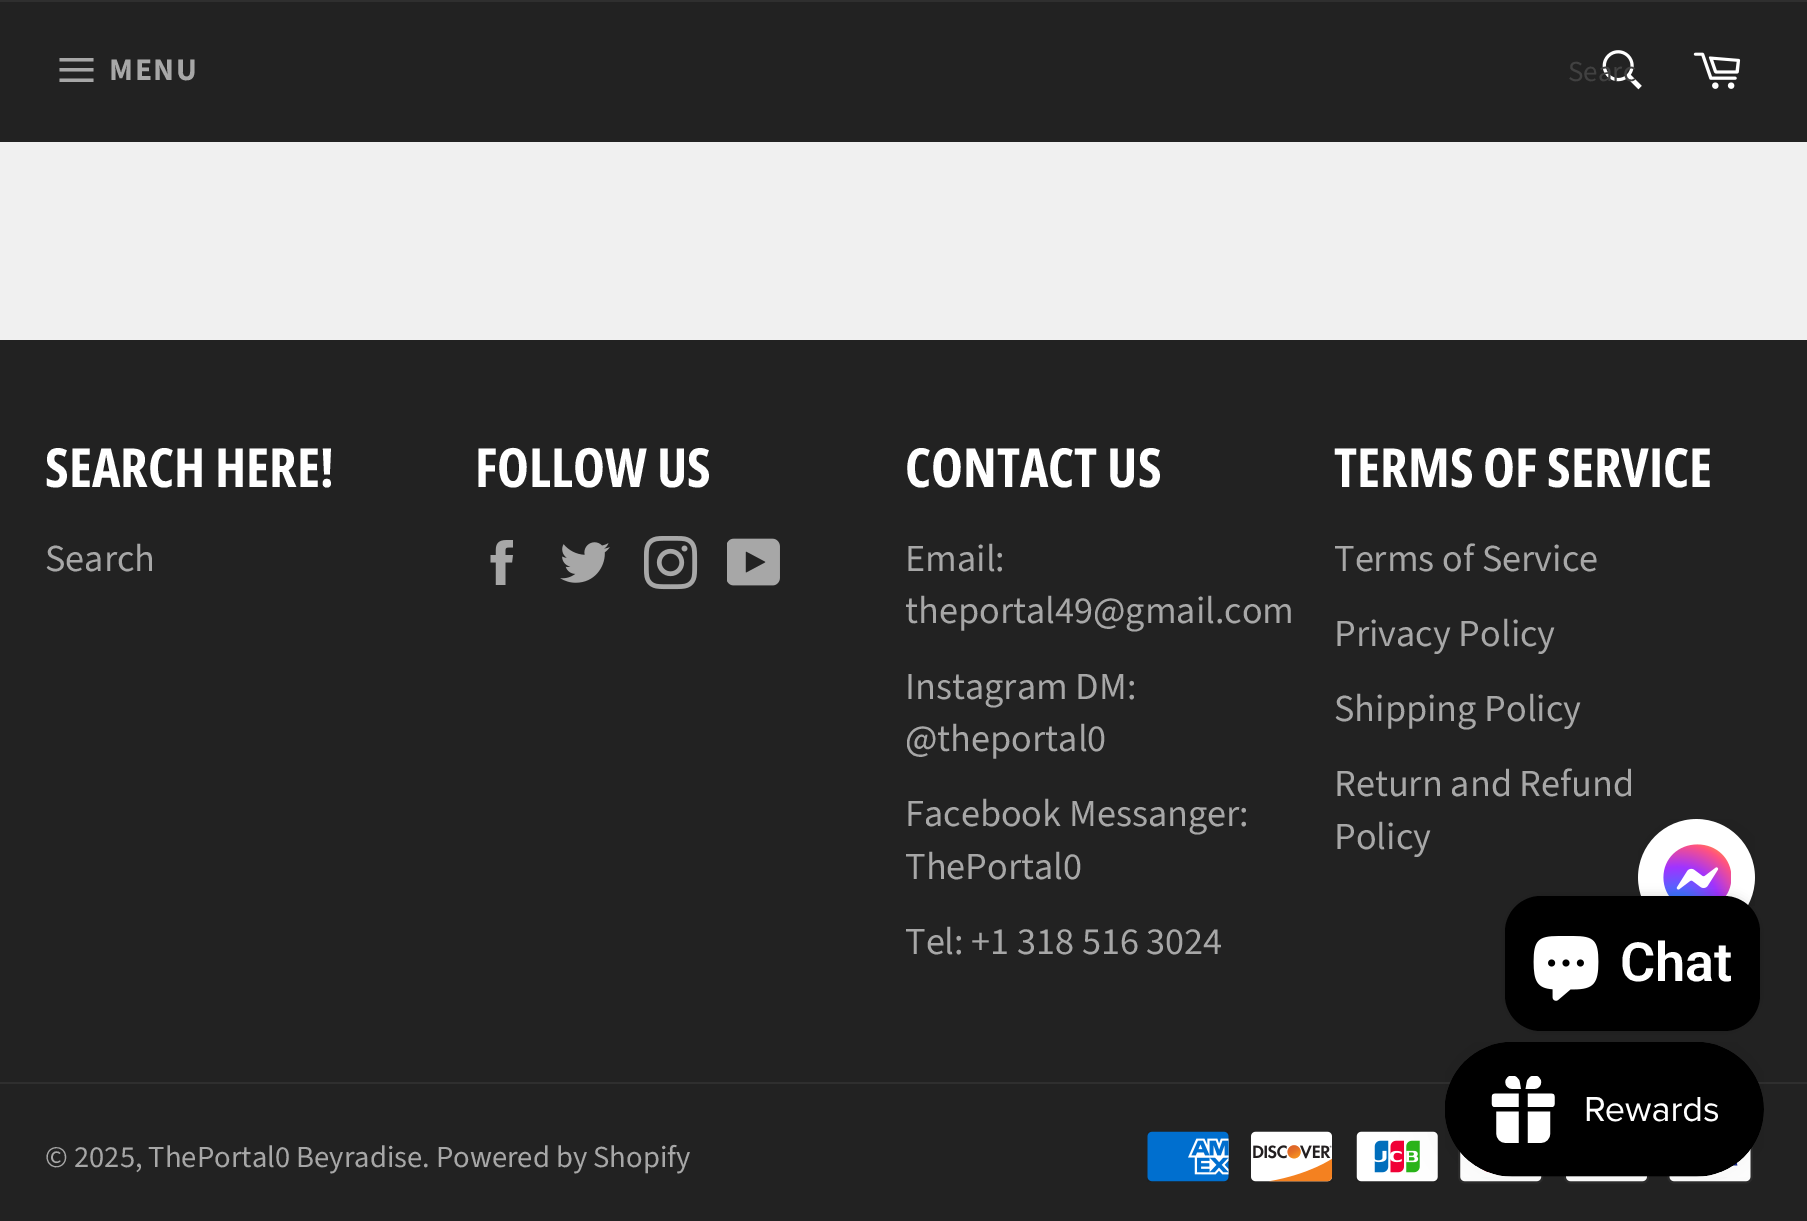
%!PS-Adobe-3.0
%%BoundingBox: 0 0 1807 1221
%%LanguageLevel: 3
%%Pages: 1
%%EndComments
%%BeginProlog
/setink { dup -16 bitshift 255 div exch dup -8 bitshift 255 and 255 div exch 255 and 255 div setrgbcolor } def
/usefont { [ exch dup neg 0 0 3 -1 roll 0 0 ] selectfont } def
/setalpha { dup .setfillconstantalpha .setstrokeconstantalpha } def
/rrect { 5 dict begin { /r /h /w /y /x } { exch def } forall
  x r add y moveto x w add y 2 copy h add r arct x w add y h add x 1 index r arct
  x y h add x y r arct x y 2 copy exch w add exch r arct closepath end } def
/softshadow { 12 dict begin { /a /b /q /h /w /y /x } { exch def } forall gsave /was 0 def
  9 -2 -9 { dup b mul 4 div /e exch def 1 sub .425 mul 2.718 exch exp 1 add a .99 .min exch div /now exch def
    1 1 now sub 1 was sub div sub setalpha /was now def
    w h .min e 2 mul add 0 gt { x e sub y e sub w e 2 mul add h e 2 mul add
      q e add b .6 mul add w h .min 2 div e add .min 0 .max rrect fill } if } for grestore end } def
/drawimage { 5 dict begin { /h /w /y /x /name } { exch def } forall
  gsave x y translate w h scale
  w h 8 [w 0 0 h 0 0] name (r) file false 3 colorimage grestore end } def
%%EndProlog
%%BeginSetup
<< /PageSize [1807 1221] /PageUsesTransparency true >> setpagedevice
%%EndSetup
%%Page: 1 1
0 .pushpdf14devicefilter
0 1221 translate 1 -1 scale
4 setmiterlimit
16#F0F0F0 setink
0 0 1807 1221 rectfill
16#222222 setink
0 2 1807 140 rectfill
16#2F2F2F setink
0 0 1807 2 rectfill
16#A7A7A7 setink
59.5 68 moveto 93.5 68 lineto 93.5 71.5 lineto 59.5 71.5 lineto closepath 59.5 58 moveto 93.5 58 lineto 93.5 61.5 lineto 59.5 61.5 lineto closepath 59.5 78.5 moveto 93.5 78.5 lineto 93.5 82 lineto 59.5 82 lineto closepath fill
/SourceSansPro-Bold 31.5 usefont
109 80 moveto 1.5 0 (MENU) ashow
(img1.raw) 1602 50 40 40 drawimage
/SourceSansPro-Regular 29 usefont
16#414141 setink
1568 81 moveto (Searc) show
(img2.raw) 1693 52 48 37 drawimage
16#222222 setink
0 340 1807 881 rectfill
/OpenSansCondensed-Bold 54 usefont
16#FFFFFF setink
45 487 moveto (SEARCH HERE!) show
/SourceSansPro-Regular 38.25 usefont
16#A7A7A7 setink
45 571 moveto (Search) show
/OpenSansCondensed-Bold 54 usefont
16#FFFFFF setink
475 487 moveto (FOLLOW US) show
(img3.raw) 490 540 23 45 drawimage
(img4.raw) 560 542 50 41 drawimage
(img5.raw) 644 536 54 54 drawimage
(img6.raw) 727 538 53 48 drawimage
905 487 moveto (CONTACT US) show
/SourceSansPro-Regular 38.25 usefont
16#A7A7A7 setink
[
    [(Email:) 905 571]
    [(theportal49@gmail.com) 905 623]
    [(Instagram DM:) 905 699]
    [(@theportal0) 905 751]
    [(Facebook Messanger:) 905 826]
    [(ThePortal0) 905 879]
    [(Tel: +1 318 516 3024) 905 954]
] { aload pop moveto show } forall
/OpenSansCondensed-Bold 54 usefont
16#FFFFFF setink
1334 487 moveto (TERMS OF SERVICE) show
/SourceSansPro-Regular 38.25 usefont
16#A7A7A7 setink
[
    [(Terms of Service) 1334 571]
    [(Privacy Policy) 1334 646]
    [(Shipping Policy) 1334 721]
    [(Return and Refund) 1334 796]
    [(Policy) 1334 849]
] { aload pop moveto show } forall
16#2F2F2F setink
0 1082 1807 2 rectfill
/SourceSansPro-Regular 30.6 usefont
16#A7A7A7 setink
45 1167 moveto (© 2025, ThePortal0 Beyradise. Powered by Shopify) show
(img7.raw) 1147 1131 82 51 drawimage
(img8.raw) 1251 1131 82 51 drawimage
(img9.raw) 1356 1131 82 51 drawimage
(img10.raw) 1458 1149 85 35 drawimage
(img11.raw) 1564 1176 85 8 drawimage
(img12.raw) 1667 1146 86 38 drawimage
(img13.raw) 1638 819 117 87 drawimage
16#000000 setink
1505 896 255 135 36 5.5 0.15 softshadow
1505 896 255 135 36 rrect fill
(img14.raw) 1533 936 66 65 drawimage
/Roboto-SemiBold 54 usefont
16#FFFFFF setink
1620 981 moveto (Chat) show
16#000000 setink
1445 1042 319 135 67.5 28 0.05 softshadow
(img15.raw) 1445 1042 319 135 drawimage
.poppdf14devicefilter showpage
%%EOF
